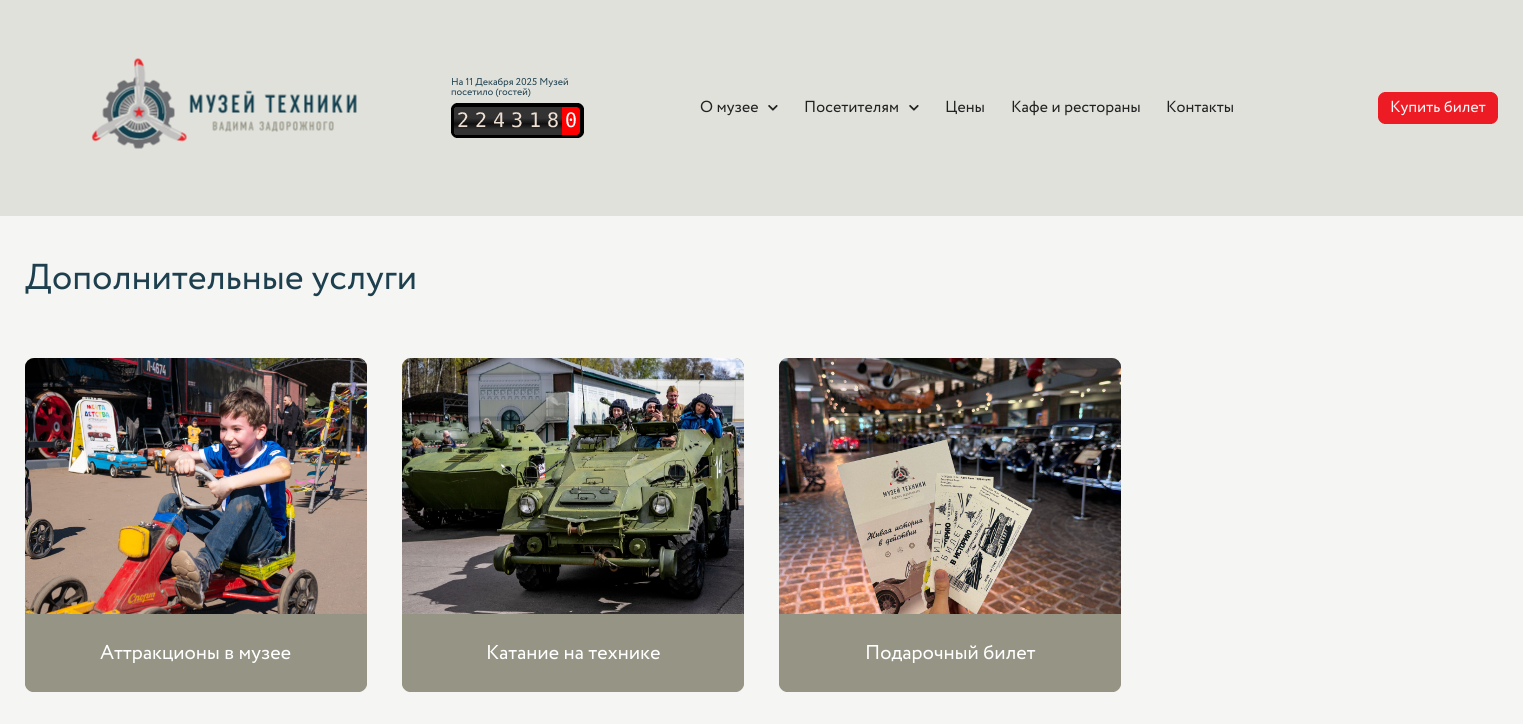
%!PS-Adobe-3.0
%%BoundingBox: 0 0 1523 724
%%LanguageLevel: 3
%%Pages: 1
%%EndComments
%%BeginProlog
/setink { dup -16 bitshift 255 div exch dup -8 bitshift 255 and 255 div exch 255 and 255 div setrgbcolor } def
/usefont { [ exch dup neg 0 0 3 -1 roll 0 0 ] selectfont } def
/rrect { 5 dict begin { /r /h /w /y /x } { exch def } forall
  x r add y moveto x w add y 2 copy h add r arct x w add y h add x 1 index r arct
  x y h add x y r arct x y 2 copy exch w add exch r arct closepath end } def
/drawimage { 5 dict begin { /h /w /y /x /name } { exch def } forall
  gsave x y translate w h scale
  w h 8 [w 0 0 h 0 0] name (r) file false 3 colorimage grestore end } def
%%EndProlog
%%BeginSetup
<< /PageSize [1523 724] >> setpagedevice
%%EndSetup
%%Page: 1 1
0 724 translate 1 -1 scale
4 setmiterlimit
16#F5F5F3 setink
0 0 1523 724 rectfill
16#E0E1DB setink
0 0 1523 216 rectfill
(img1.raw) 91 58 266 91 drawimage
(img2.raw) 700 100 58 16 drawimage
(img3.raw) 768 105 10 6 drawimage
(img4.raw) 805 100 93 13 drawimage
(img3.raw) 909 105 10 6 drawimage
(img5.raw) 946 100 38 15 drawimage
(img6.raw) 1012 100 128 16 drawimage
(img7.raw) 1167 100 66 13 drawimage
16#ED1C24 setink
1378 92 120 32 8 rrect fill
(img8.raw) 1391 100 95 16 drawimage
(img9.raw) 452 77 116 10 drawimage
(img10.raw) 451 88 80 9 drawimage
16#000000 setink
451 103 133 35 7 rrect fill
gsave 458 107 moveto 472 107 lineto 472 135 lineto 458 135 lineto 456 135 454 133 454 131 curveto 454 111 lineto 454 109 456 107 458 107 curveto closepath clip newpath
<< /ShadingType 2 /ColorSpace /DeviceRGB /Coords [463 107 463 135] /Extend [true true] /Function << /FunctionType 3 /Domain [0 1] /Functions [<< /FunctionType 2 /Domain [0 1] /C0 [0.2 0.2 0.2] /C1 [0.2 0.2 0.2] /N 1 >> << /FunctionType 2 /Domain [0 1] /C0 [0.2 0.2 0.2] /C1 [0.063 0.063 0.063] /N 1 >> << /FunctionType 2 /Domain [0 1] /C0 [0.063 0.063 0.063] /C1 [0.2 0.2 0.2] /N 1 >> << /FunctionType 2 /Domain [0 1] /C0 [0.2 0.2 0.2] /C1 [0.2 0.2 0.2] /N 1 >>] /Bounds [0.4 0.6 0.8] /Encode [0 1 0 1 0 1 0 1] >> >> shfill grestore
/DejaVuSansMono-Regular 20 usefont
16#EEE0D3 setink
457 127 moveto (2) show
gsave 472 107 moveto 490 107 lineto 490 135 lineto 472 135 lineto closepath clip newpath
<< /ShadingType 2 /ColorSpace /DeviceRGB /Coords [481 107 481 135] /Extend [true true] /Function << /FunctionType 3 /Domain [0 1] /Functions [<< /FunctionType 2 /Domain [0 1] /C0 [0.2 0.2 0.2] /C1 [0.2 0.2 0.2] /N 1 >> << /FunctionType 2 /Domain [0 1] /C0 [0.2 0.2 0.2] /C1 [0.063 0.063 0.063] /N 1 >> << /FunctionType 2 /Domain [0 1] /C0 [0.063 0.063 0.063] /C1 [0.2 0.2 0.2] /N 1 >> << /FunctionType 2 /Domain [0 1] /C0 [0.2 0.2 0.2] /C1 [0.2 0.2 0.2] /N 1 >>] /Bounds [0.4 0.6 0.8] /Encode [0 1 0 1 0 1 0 1] >> >> shfill grestore
475 127 moveto (2) show
gsave 490 107 moveto 508 107 lineto 508 135 lineto 490 135 lineto closepath clip newpath
<< /ShadingType 2 /ColorSpace /DeviceRGB /Coords [499 107 499 135] /Extend [true true] /Function << /FunctionType 3 /Domain [0 1] /Functions [<< /FunctionType 2 /Domain [0 1] /C0 [0.2 0.2 0.2] /C1 [0.2 0.2 0.2] /N 1 >> << /FunctionType 2 /Domain [0 1] /C0 [0.2 0.2 0.2] /C1 [0.063 0.063 0.063] /N 1 >> << /FunctionType 2 /Domain [0 1] /C0 [0.063 0.063 0.063] /C1 [0.2 0.2 0.2] /N 1 >> << /FunctionType 2 /Domain [0 1] /C0 [0.2 0.2 0.2] /C1 [0.2 0.2 0.2] /N 1 >>] /Bounds [0.4 0.6 0.8] /Encode [0 1 0 1 0 1 0 1] >> >> shfill grestore
493 127 moveto (4) show
gsave 508 107 moveto 526 107 lineto 526 135 lineto 508 135 lineto closepath clip newpath
<< /ShadingType 2 /ColorSpace /DeviceRGB /Coords [517 107 517 135] /Extend [true true] /Function << /FunctionType 3 /Domain [0 1] /Functions [<< /FunctionType 2 /Domain [0 1] /C0 [0.2 0.2 0.2] /C1 [0.2 0.2 0.2] /N 1 >> << /FunctionType 2 /Domain [0 1] /C0 [0.2 0.2 0.2] /C1 [0.063 0.063 0.063] /N 1 >> << /FunctionType 2 /Domain [0 1] /C0 [0.063 0.063 0.063] /C1 [0.2 0.2 0.2] /N 1 >> << /FunctionType 2 /Domain [0 1] /C0 [0.2 0.2 0.2] /C1 [0.2 0.2 0.2] /N 1 >>] /Bounds [0.4 0.6 0.8] /Encode [0 1 0 1 0 1 0 1] >> >> shfill grestore
511 127 moveto (3) show
gsave 526 107 moveto 544 107 lineto 544 135 lineto 526 135 lineto closepath clip newpath
<< /ShadingType 2 /ColorSpace /DeviceRGB /Coords [535 107 535 135] /Extend [true true] /Function << /FunctionType 3 /Domain [0 1] /Functions [<< /FunctionType 2 /Domain [0 1] /C0 [0.2 0.2 0.2] /C1 [0.2 0.2 0.2] /N 1 >> << /FunctionType 2 /Domain [0 1] /C0 [0.2 0.2 0.2] /C1 [0.063 0.063 0.063] /N 1 >> << /FunctionType 2 /Domain [0 1] /C0 [0.063 0.063 0.063] /C1 [0.2 0.2 0.2] /N 1 >> << /FunctionType 2 /Domain [0 1] /C0 [0.2 0.2 0.2] /C1 [0.2 0.2 0.2] /N 1 >>] /Bounds [0.4 0.6 0.8] /Encode [0 1 0 1 0 1 0 1] >> >> shfill grestore
529 127 moveto (1) show
gsave 544 107 moveto 562 107 lineto 562 135 lineto 544 135 lineto closepath clip newpath
<< /ShadingType 2 /ColorSpace /DeviceRGB /Coords [553 107 553 135] /Extend [true true] /Function << /FunctionType 3 /Domain [0 1] /Functions [<< /FunctionType 2 /Domain [0 1] /C0 [0.2 0.2 0.2] /C1 [0.2 0.2 0.2] /N 1 >> << /FunctionType 2 /Domain [0 1] /C0 [0.2 0.2 0.2] /C1 [0.063 0.063 0.063] /N 1 >> << /FunctionType 2 /Domain [0 1] /C0 [0.063 0.063 0.063] /C1 [0.2 0.2 0.2] /N 1 >> << /FunctionType 2 /Domain [0 1] /C0 [0.2 0.2 0.2] /C1 [0.2 0.2 0.2] /N 1 >>] /Bounds [0.4 0.6 0.8] /Encode [0 1 0 1 0 1 0 1] >> >> shfill grestore
547 127 moveto (8) show
16#FF0000 setink
562 107 moveto 576 107 lineto 578 107 580 109 580 111 curveto 580 131 lineto 580 133 578 135 576 135 curveto 562 135 lineto closepath fill
16#FFFFFF setink
565 127 moveto (0) show
(img11.raw) 25 263 390 34 drawimage
16#959485 setink
25 358 342 334 9 rrect fill
(img12.raw) 25 358 342 256 drawimage
(img13.raw) 100 644 191 19 drawimage
402 358 342 334 9 rrect fill
(img14.raw) 402 358 342 256 drawimage
(img15.raw) 488 645 172 15 drawimage
779 358 342 334 9 rrect fill
(img16.raw) 779 358 342 256 drawimage
(img17.raw) 867 644 169 19 drawimage
showpage
%%EOF
